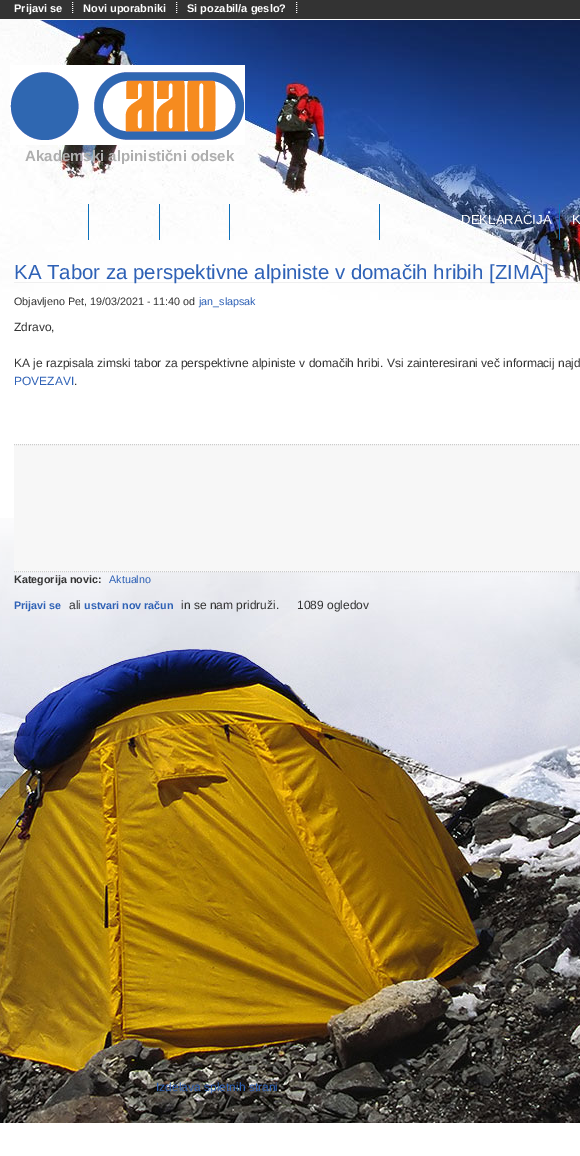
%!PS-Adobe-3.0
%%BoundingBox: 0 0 580 1156
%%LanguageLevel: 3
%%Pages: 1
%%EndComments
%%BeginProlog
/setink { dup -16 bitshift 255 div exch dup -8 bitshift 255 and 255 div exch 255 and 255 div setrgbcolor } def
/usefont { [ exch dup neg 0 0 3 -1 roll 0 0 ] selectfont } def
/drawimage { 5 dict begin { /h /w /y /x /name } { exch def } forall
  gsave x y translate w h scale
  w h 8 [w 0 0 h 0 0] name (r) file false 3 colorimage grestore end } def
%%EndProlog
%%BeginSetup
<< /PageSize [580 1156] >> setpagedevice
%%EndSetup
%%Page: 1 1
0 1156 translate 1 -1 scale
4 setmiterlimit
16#FFFFFF setink
0 0 580 1156 rectfill
(img1.raw) 0 518 580 605 drawimage
(img2.raw) 0 20 580 280 drawimage
16#333333 setink
0 0 580 19 rectfill
16#FFFFFF setink
[1 1] 0 setdash
72.5 2 moveto 72.5 14 lineto stroke
/LiberationSans-Bold 11 usefont
14 12 moveto (Prijavi se) show
176.5 2 moveto 176.5 14 lineto stroke
83 12 moveto (Novi uporabniki) show
296.5 2 moveto 296.5 14 lineto stroke
187 12 moveto (Si pozabil/a geslo?) show
(img3.raw) 10 65 235 80 drawimage
/LiberationSans-Bold 15 usefont
16#AEAEAE setink
25 161 moveto (Akademski alpinistični odsek) show
[
    [88 204 1 36 16#0F71B9]
    [159 204 1 36 16#0F71B9]
    [229 204 1 36 16#0F71B9]
    [379 204 1 36 16#0F71B9]
    [559 204 1 36 16#0F71B9]
] { aload pop setink rectfill } forall
/LiberationSans-Regular 13.25 usefont
16#FFFFFF setink
461 224 moveto (DEKLARACIJA) show
572 224 moveto (K) show
16#EFEFEF setink
14 282 566 1 rectfill
/LiberationSans-Regular 20.4 usefont
16#2E61B6 setink
14 279 moveto (KA Tabor za perspektivne alpiniste v domačih hribih [ZIMA]) show
/LiberationSans-Regular 10.75 usefont
16#333333 setink
14 305 moveto (Objavljeno Pet, 19/03/2021 - 11:40 od) show
16#2E61B6 setink
199 305 moveto (jan_slapsak) show
/LiberationSans-Regular 12 usefont
16#333333 setink
14 331 moveto (Zdravo,) show
14 367 moveto (KA je razpisala zimski tabor za perspektivne alpiniste v domačih hribi. Vsi zainteresirani več informacij najd) show
16#2E61B6 setink
14 385 moveto (POVEZAVI) show
16#333333 setink
74 385 moveto (.) show
16#F7F7F7 setink
14 444 566 128 rectfill
16#CCCCCC setink
14 444.5 moveto 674 444.5 lineto stroke
14 571.5 moveto 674 571.5 lineto stroke
/LiberationSans-Bold 10.75 usefont
16#333333 setink
14 583 moveto (Kategorija novic:) show
/LiberationSans-Regular 10.75 usefont
16#2E61B6 setink
109 583 moveto (Aktualno) show
/LiberationSans-Bold 10.75 usefont
14 609 moveto (Prijavi se) show
/LiberationSans-Regular 12 usefont
16#333333 setink
69 609 moveto (ali) show
/LiberationSans-Bold 10.75 usefont
16#2E61B6 setink
84 609 moveto (ustvari nov račun) show
/LiberationSans-Regular 12 usefont
16#333333 setink
181 609 moveto (in se nam pridruži.) show
297 609 moveto (1089 ogledov) show
16#2E61B6 setink
156 1091 moveto (Izdelava spletnih strani) show
showpage
%%EOF
